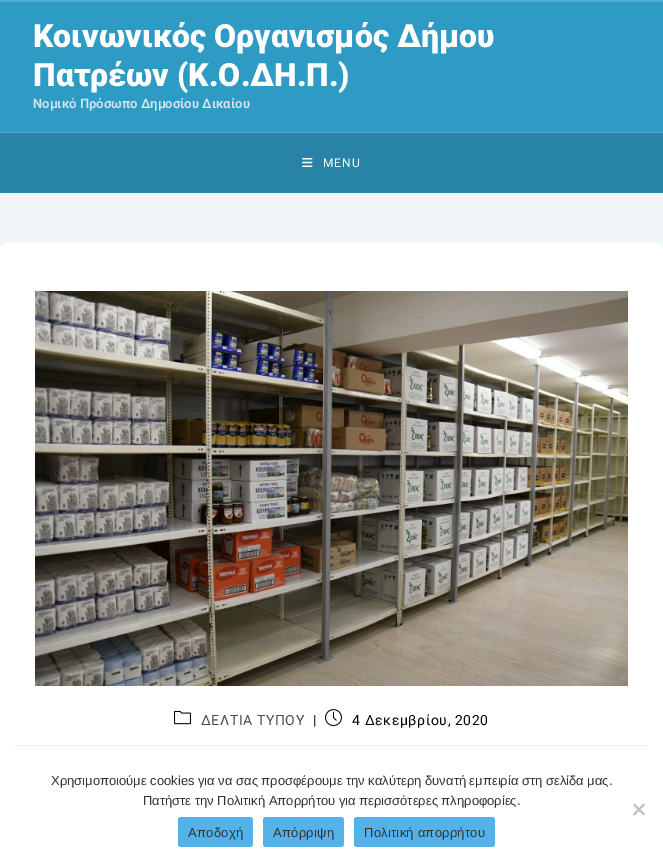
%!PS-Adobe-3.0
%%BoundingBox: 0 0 663 862
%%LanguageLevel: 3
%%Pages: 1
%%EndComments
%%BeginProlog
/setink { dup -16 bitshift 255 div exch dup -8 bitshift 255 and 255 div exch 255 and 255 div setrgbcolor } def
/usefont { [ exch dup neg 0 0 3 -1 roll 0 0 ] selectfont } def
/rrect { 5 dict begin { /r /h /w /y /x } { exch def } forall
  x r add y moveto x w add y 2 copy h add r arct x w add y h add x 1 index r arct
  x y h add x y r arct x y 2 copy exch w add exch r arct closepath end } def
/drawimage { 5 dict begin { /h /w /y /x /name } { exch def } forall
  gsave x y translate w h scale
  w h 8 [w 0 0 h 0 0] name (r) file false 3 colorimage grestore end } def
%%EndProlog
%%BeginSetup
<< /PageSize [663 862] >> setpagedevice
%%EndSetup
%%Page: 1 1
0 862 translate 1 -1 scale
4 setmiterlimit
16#FFFFFF setink
0 0 663 862 rectfill
gsave 0 193 moveto 663 193 lineto 663 251 lineto 0 251 lineto closepath clip newpath
<< /ShadingType 2 /ColorSpace /DeviceRGB /Coords [332 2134 332 0] /Extend [true true] /Function << /FunctionType 3 /Domain [0 1] /Functions [<< /FunctionType 2 /Domain [0 1] /C0 [0.839 0.894 0.925] /C1 [0.839 0.894 0.925] /N 1 >> << /FunctionType 2 /Domain [0 1] /C0 [0.839 0.894 0.925] /C1 [0.965 0.976 0.984] /N 1 >>] /Bounds [0.35] /Encode [0 1 0 1] >> >> shfill grestore
[
    [0 0 663 2 16#4FAED2]
    [0 2 663 130 16#2D9BC4]
    [0 132 663 1 16#55AECF]
] { aload pop setink rectfill } forall
/Roboto-Black 32 usefont
16#FFFFFF setink
33 47 moveto (Κοινωνικός Οργανισμός Δήμου) show
33 86 moveto (Πατρέων \(Κ.Ο.ΔΗ.Π.\)) show
/Roboto-SemiBold 13 usefont
16#D6E4EC setink
33 108 moveto (Νομικό Πρόσωπο Δημοσίου Δικαίου) show
16#2784A6 setink
0 133 663 60 rectfill
(img1.raw) 302 158 11 9 drawimage
/Roboto-Regular 12 usefont
16#FFFFFF setink
323 167 moveto 1 0 (MENU) ashow
0 243 663 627 8 rrect fill
(img2.raw) 35 291 593 395 drawimage
16#F1F1F1 setink
15 745 633 1 rectfill
(img3.raw) 174 710 17 15 drawimage
/Roboto-Regular 14 usefont
16#4A4A4A setink
201 725 moveto 0.6 0 (ΔΕΛΤΙΑ ΤΥΠΟΥ) ashow
/Roboto-Bold 14 usefont
16#000000 setink
313 725 moveto 0.6 0 (|) ashow
(img4.raw) 325 709 17 18 drawimage
/Roboto-Regular 14 usefont
352 725 moveto 0.6 0 (4 Δεκεμβρίου, 2020) ashow
/LiberationSans-Regular 13 usefont
16#333333 setink
51 785 moveto (Χρησιμοποιούμε cookies για να σας προσφέρουμε την καλύτερη δυνατή εμπειρία στη σελίδα μας.) show
143 805 moveto (Πατήστε την Πολιτική Απορρήτου για περισσότερες πληροφορίες.) show
16#C0C0C0 setink
643.5 803.5 moveto 645 805 lineto 634.5 815.5 lineto 633 814 lineto closepath fill
633 805 moveto 634.5 803.5 lineto 645 814 lineto 643.5 815.5 lineto closepath fill
16#55B2E8 setink
178 817 75 30 3 rrect fill
16#333333 setink
188 837 moveto 0.25 0 (Αποδοχή) ashow
16#55B2E8 setink
263 817 81 30 3 rrect fill
16#333333 setink
273 837 moveto 0.25 0 (Απόρριψη) ashow
16#55B2E8 setink
354 817 141 30 3 rrect fill
16#333333 setink
364 837 moveto 0.25 0 (Πολιτική απορρήτου) ashow
showpage
%%EOF
